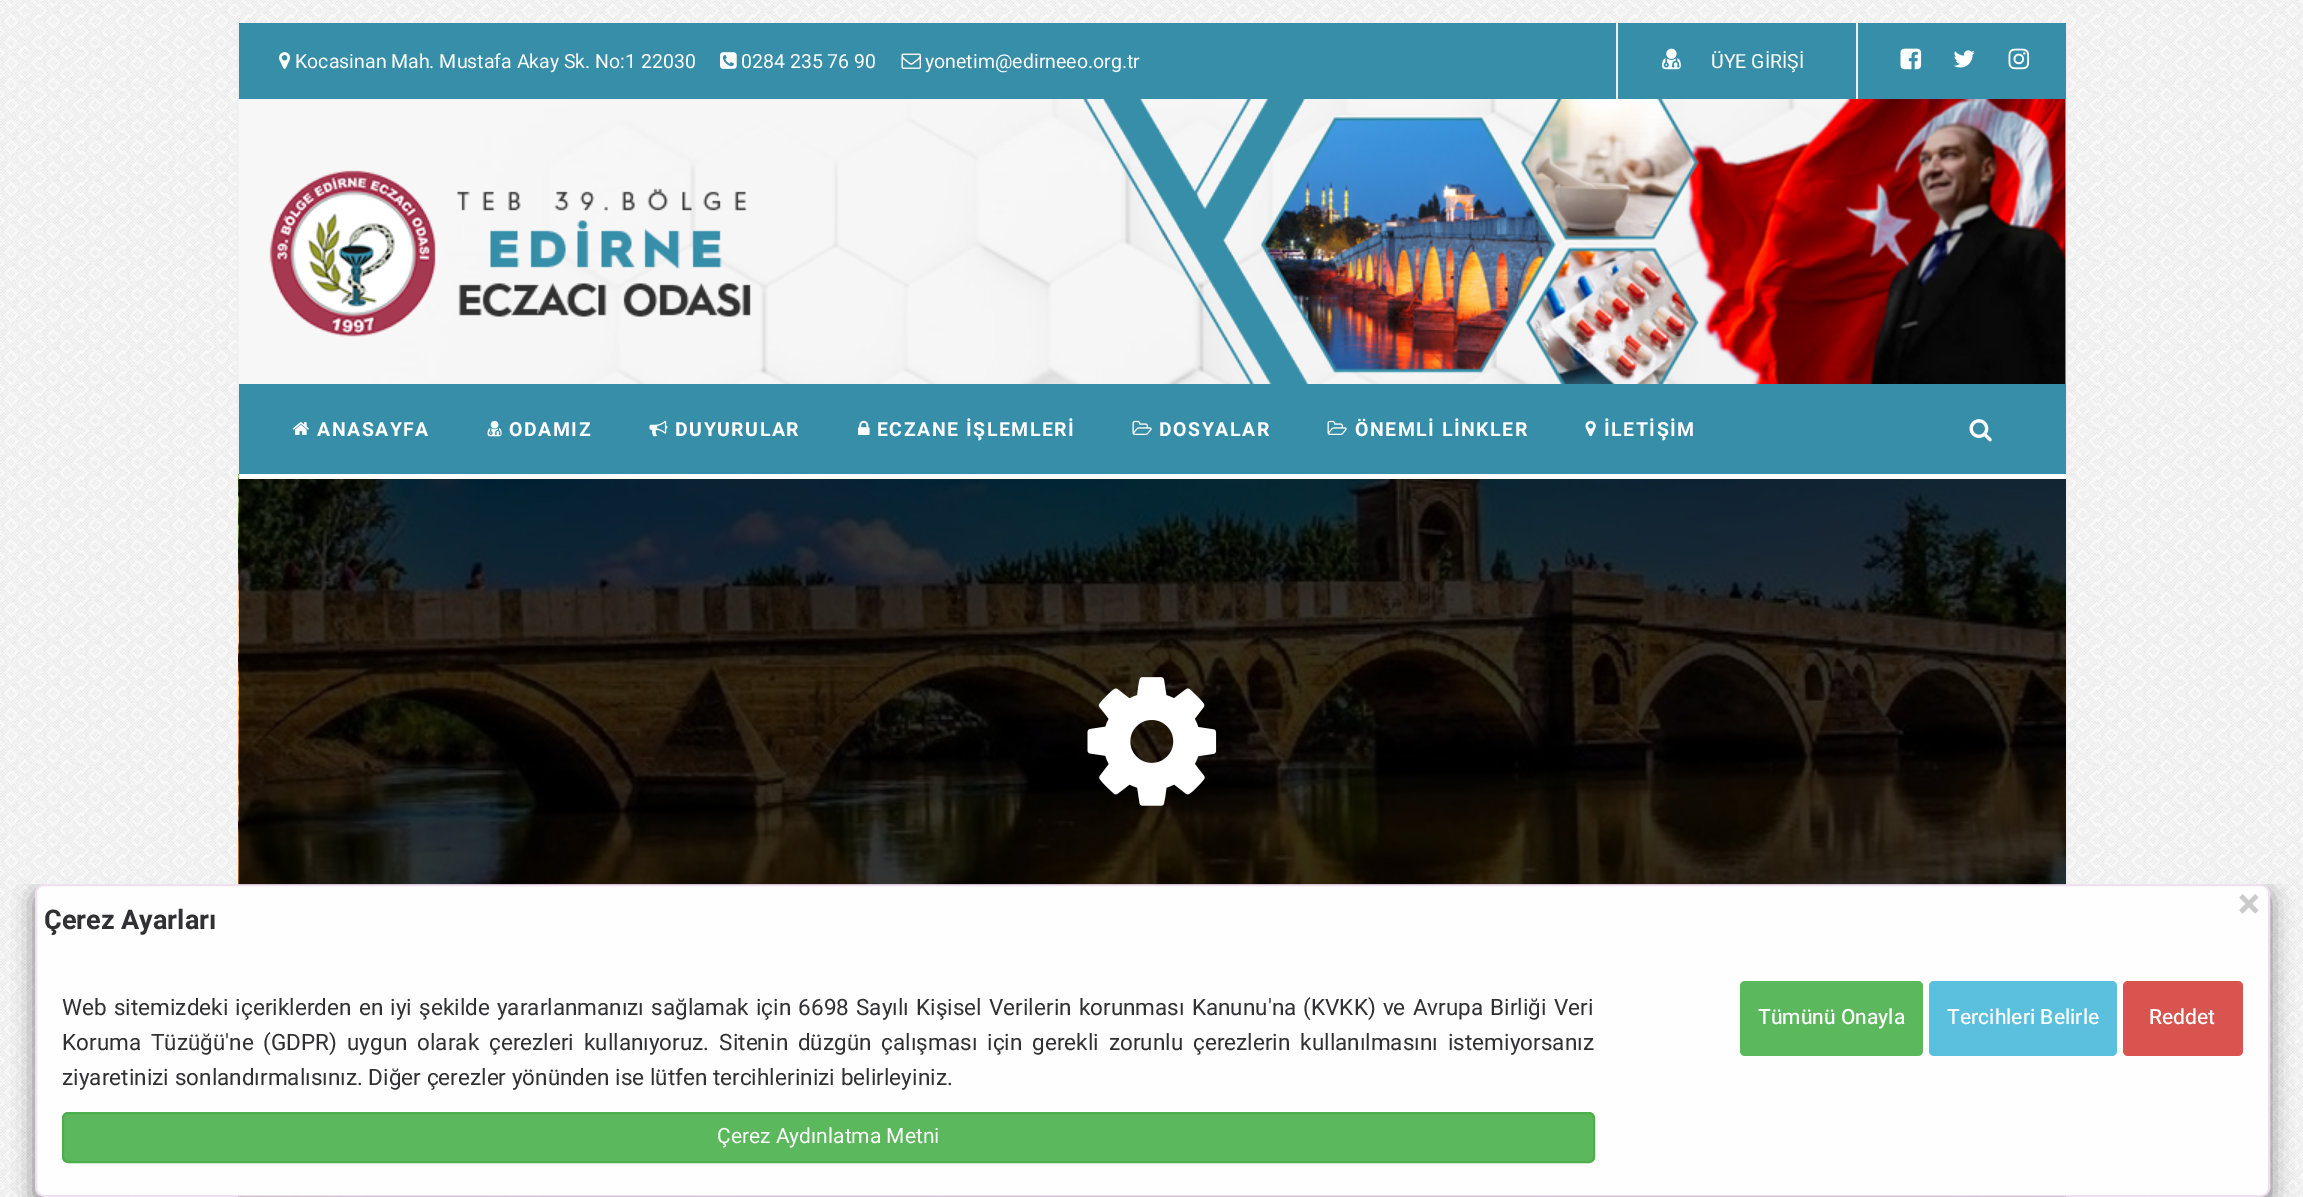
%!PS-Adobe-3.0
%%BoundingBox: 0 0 2303 1197
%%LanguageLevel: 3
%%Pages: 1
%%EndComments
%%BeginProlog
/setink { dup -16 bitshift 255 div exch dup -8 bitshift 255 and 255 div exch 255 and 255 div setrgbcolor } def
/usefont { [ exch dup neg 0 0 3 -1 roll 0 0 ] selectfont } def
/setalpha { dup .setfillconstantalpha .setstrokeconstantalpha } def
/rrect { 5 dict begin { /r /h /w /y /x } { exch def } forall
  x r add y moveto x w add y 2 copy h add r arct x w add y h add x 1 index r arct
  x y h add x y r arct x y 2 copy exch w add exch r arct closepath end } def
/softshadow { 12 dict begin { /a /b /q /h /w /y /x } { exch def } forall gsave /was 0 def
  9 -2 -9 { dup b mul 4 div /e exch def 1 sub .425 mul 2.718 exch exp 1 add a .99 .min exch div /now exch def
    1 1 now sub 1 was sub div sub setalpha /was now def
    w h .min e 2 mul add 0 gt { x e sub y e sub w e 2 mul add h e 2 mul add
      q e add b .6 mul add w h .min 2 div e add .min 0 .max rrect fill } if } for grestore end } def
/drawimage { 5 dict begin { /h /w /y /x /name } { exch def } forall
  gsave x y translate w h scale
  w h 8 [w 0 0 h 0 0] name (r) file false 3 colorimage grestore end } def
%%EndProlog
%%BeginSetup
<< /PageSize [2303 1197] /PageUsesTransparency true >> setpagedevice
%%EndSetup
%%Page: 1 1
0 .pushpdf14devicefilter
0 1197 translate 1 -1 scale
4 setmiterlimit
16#FFFFFF setink
0 0 2303 1197 rectfill
(img1.raw) 0 0 2303 1197 drawimage
[
    [2065 99 1 285 16#FFFFFF]
    [2066 23 2 1174 16#EEEEEE]
    [237 23 2 1174 16#EEEEEE]
    [239 23 1827 76 16#368EA9]
] { aload pop setink rectfill } forall
(img2.raw) 279 52 12 17 drawimage
/Heebo-Regular 19.5 usefont
16#FFFFFF setink
295 68 moveto (Kocasinan Mah. Mustafa Akay Sk. No:1 22030) show
(img3.raw) 720 52 17 17 drawimage
741 68 moveto (0284 235 76 90) show
(img4.raw) 901 53 20 16 drawimage
925 68 moveto (yonetim@edirneeo.org.tr) show
16#EEEEEE setink
1616 23 2 76 rectfill
(img5.raw) 1662 48 19 22 drawimage
16#FFFFFF setink
1711 68 moveto (ÜYE GİRİŞİ) show
16#EEEEEE setink
1856 23 2 76 rectfill
(img6.raw) 1900 48 22 22 drawimage
(img7.raw) 1953 50 22 18 drawimage
(img8.raw) 2008 48 22 22 drawimage
(img9.raw) 238 99 1828 285 drawimage
(img10.raw) 269 170 482 167 drawimage
16#368EA9 setink
239 384 1827 90 rectfill
(img11.raw) 292 422 17 13 drawimage
/Heebo-Bold 19.5 usefont
16#FFFFFF setink
317 436 moveto 1.5 0 (ANASAYFA) ashow
(img12.raw) 487 420 15 17 drawimage
509 436 moveto 1.5 0 (ODAMIZ) ashow
(img13.raw) 649 420 19 17 drawimage
675 436 moveto 1.5 0 (DUYURULAR) ashow
(img14.raw) 858 420 12 15 drawimage
877 436 moveto 1.5 0 (ECZANE İŞLEMLERİ) ashow
(img15.raw) 1132 420 20 15 drawimage
1159 436 moveto 1.5 0 (DOSYALAR) ashow
(img15.raw) 1327 420 20 15 drawimage
1355 436 moveto 1.5 0 (ÖNEMLİ LİNKLER) ashow
(img16.raw) 1585 420 11 17 drawimage
1604 436 moveto 1.5 0 (İLETİŞİM) ashow
(img17.raw) 1969 419 23 23 drawimage
(img18.raw) 238 474 1828 723 drawimage
239 474 1827 5 rectfill
(img19.raw) 1087 677 130 129 drawimage
gsave
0 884 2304 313 rectclip
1 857 moveto 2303 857 lineto 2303 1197 lineto 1 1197 lineto closepath 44 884 moveto 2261 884 lineto 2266 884 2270 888 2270 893 curveto 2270 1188 lineto 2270 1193 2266 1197 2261 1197 curveto 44 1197 lineto 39 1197 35 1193 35 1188 curveto 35 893 lineto 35 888 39 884 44 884 curveto closepath eoclip newpath
16#000000 setink
35 891 2235 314 9 11 0.5 softshadow
grestore
16#FEFEFE setink
36 885 2232 311 8 rrect fill
0.87 setalpha
16#EEDDEE setink
2 setlinewidth
36 885 2233 311 8 rrect stroke
/Heebo-Bold 42 usefont
1 setalpha
16#CBCBCB setink
2237 918 moveto (×) show
/Heebo-Bold 27 usefont
16#313133 setink
44 929 moveto (Çerez Ayarları) show
/Heebo-Regular 22.5 usefont
62 1015 moveto 1.5 0 32 (Web sitemizdeki içeriklerden en iyi şekilde yararlanmanızı sağlamak için 6698 Sayılı Kişisel Verilerin korunması Kanunu'na \(KVKK\) ve Avrupa Birliği Veri) widthshow
62 1050 moveto 4.25 0 32 (Koruma Tüzüğü'ne \(GDPR\) uygun olarak çerezleri kullanıyoruz. Sitenin düzgün çalışması için gerekli zorunlu çerezlerin kullanılmasını istemiyorsanız) widthshow
62 1085 moveto (ziyaretinizi sonlandırmalısınız. Diğer çerezler yönünden ise lütfen tercihlerinizi belirleyiniz.) show
16#5CB85C setink
63 1113 1531 49 5 rrect gsave fill grestore
16#4CAE4C setink
stroke
/Heebo-Regular 21 usefont
16#FFFFFF setink
717 1143 moveto (Çerez Aydınlatma Metni) show
16#5CB85C setink
1740 981 183 75 5 rrect fill
/Heebo-Medium 21 usefont
16#FFFFFF setink
1758 1024 moveto (Tümünü Onayla) show
16#5BC0DE setink
1929 981 188 75 5 rrect fill
16#FFFFFF setink
1947 1024 moveto (Tercihleri Belirle) show
16#D9534F setink
2123 981 120 75 5 rrect fill
16#FFFFFF setink
2149 1024 moveto (Reddet) show
.poppdf14devicefilter showpage
%%EOF
